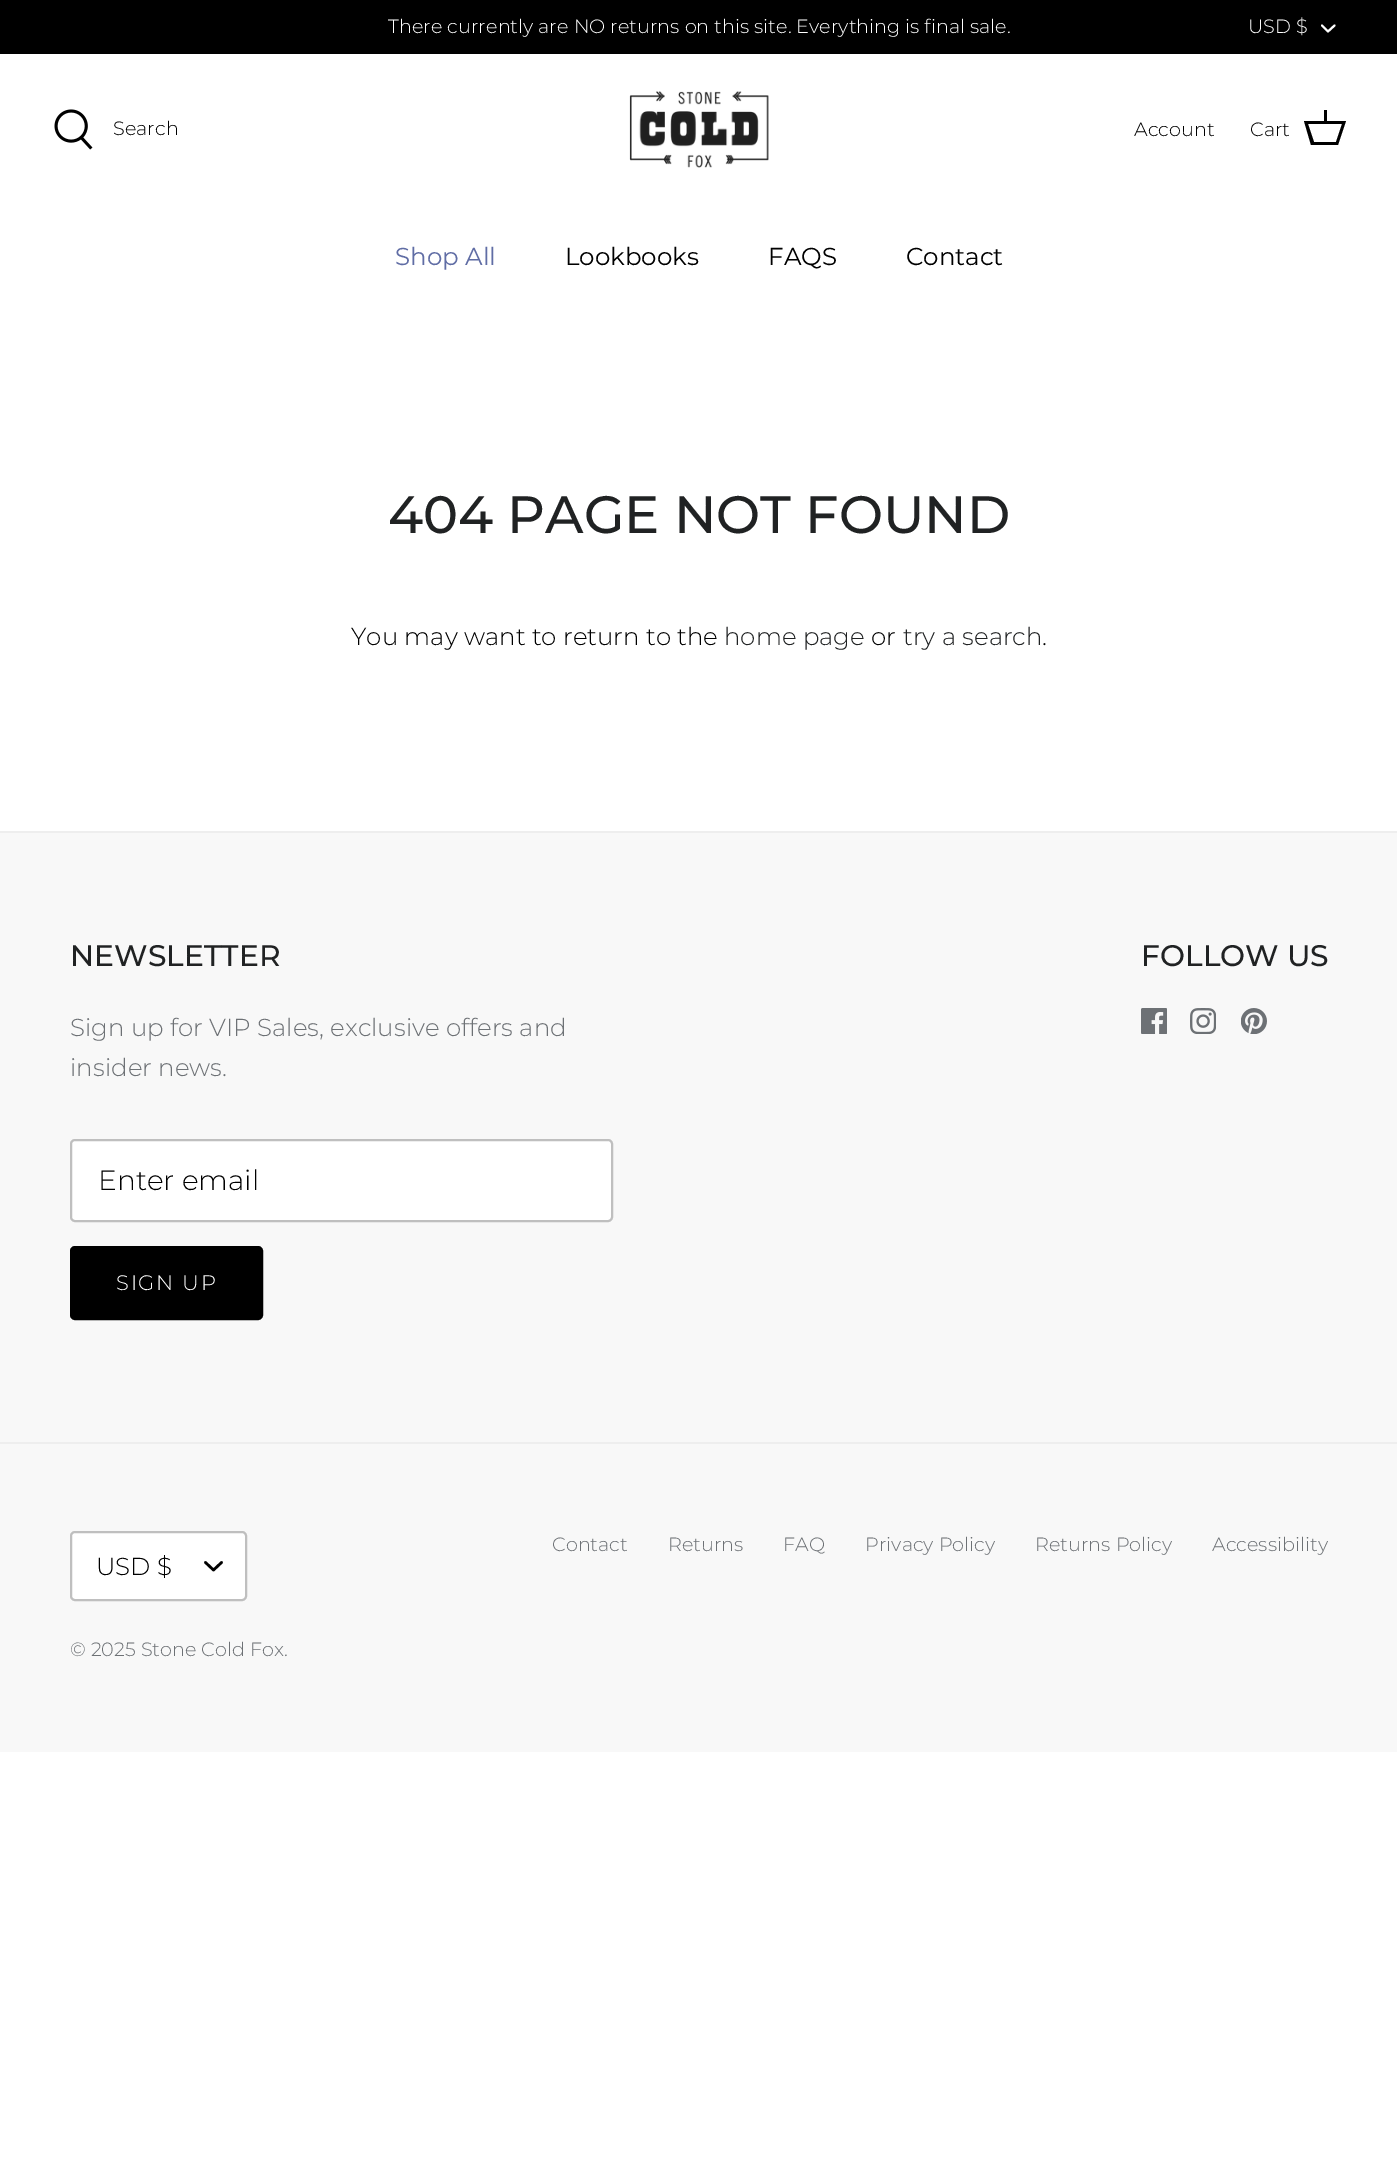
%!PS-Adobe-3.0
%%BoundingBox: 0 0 1397 2160
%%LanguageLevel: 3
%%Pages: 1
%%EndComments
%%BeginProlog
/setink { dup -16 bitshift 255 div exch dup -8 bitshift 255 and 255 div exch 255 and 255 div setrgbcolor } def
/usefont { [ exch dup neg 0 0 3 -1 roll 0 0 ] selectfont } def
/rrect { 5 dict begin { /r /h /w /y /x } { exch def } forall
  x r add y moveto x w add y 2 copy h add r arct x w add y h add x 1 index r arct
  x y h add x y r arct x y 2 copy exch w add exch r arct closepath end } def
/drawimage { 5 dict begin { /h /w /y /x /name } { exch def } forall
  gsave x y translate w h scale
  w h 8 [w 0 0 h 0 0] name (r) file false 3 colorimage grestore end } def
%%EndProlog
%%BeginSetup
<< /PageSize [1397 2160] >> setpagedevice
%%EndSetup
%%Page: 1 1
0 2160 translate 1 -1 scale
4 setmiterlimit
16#FFFFFF setink
0 0 1397 2160 rectfill
16#000000 setink
0 0 1397 54 rectfill
/Montserrat-Light 19.25 usefont
16#FFFFFF setink
388 33 moveto (There currently are NO returns on this site. Everything is final sale.) show
1248 33 moveto (USD $) show
2 setlinewidth
1 setlinecap
1 setlinejoin
1322 25.5 moveto 1328 31.5 lineto 1334.5 25.5 lineto stroke
(img1.raw) 54 109 39 41 drawimage
16#000000 setink
113 135 moveto (Search) show
(img2.raw) 629 91 140 77 drawimage
1134 136 moveto (Account) show
1250 136 moveto (Cart) show
1324 121 moveto 1324 110 lineto 1327 110 lineto 1327 121 lineto 1346 121 lineto 1338 145 lineto 1311 145 lineto 1304 121 lineto closepath 1308 124 moveto 1314 142 lineto 1336 142 lineto 1342 124 lineto closepath fill
/Montserrat-Regular 24.5 usefont
16#606DA5 setink
395 265 moveto (Shop All) show
16#000000 setink
[
    [(Lookbooks) 565 265]
    [(FAQS) 768 265]
    [(Contact) 906 265]
] { aload pop moveto show } forall
/Montserrat-Medium 52.5 usefont
16#202223 setink
388 533 moveto (404 PAGE NOT FOUND) show
/Montserrat-Light 24.5 usefont
16#000000 setink
351 645 moveto (You may want to return to the) show
16#202223 setink
724 645 moveto (home page) show
16#000000 setink
871 645 moveto (or) show
16#202223 setink
903 645 moveto (try a search) show
16#000000 setink
1042 645 moveto (.) show
16#F8F8F8 setink
0 833 1397 919 rectfill
16#EEEEEE setink
0 831 1397 2 rectfill
/Montserrat-Medium 29.75 usefont
16#202223 setink
70 966 moveto (NEWSLETTER) show
/Montserrat-Light 24.5 usefont
16#6D7175 setink
70 1036 moveto (Sign up for VIP Sales, exclusive offers and) show
70 1076 moveto (insider news.) show
16#FFFFFF setink
71 1140 541 81 4 rrect gsave fill grestore
16#BFBFBF setink
0 setlinecap
0 setlinejoin
stroke
/Montserrat-Light 28 usefont
16#000000 setink
98 1190 moveto (Enter email) show
71 1247 191 72 4 rrect gsave fill grestore
stroke
/Montserrat-Light 21 usefont
16#FFFFFF setink
116 1290 moveto 1.75 0 (SIGN UP) ashow
/Montserrat-Medium 29.75 usefont
16#202223 setink
1141 966 moveto (FOLLOW US) show
(img3.raw) 1141 1008 26 26 drawimage
(img4.raw) 1190 1008 26 26 drawimage
(img5.raw) 1241 1008 26 26 drawimage
16#EEEEEE setink
0 1442 1397 2 rectfill
/Montserrat-Light 19.25 usefont
16#6D7175 setink
[
    [(Contact) 552 1551]
    [(Returns) 668 1551]
    [(FAQ) 783 1551]
    [(Privacy Policy) 865 1551]
    [(Returns Policy) 1035 1551]
    [(Accessibility) 1212 1551]
] { aload pop moveto show } forall
16#FFFFFF setink
71 1532 175 68 4 rrect gsave fill grestore
16#BFBFBF setink
stroke
/Montserrat-Light 24.5 usefont
16#000000 setink
96 1575 moveto (USD $) show
2.6 setlinewidth
1 setlinecap
1 setlinejoin
205.5 1562.5 moveto 213.5 1570 lineto 221.5 1562.5 lineto stroke
/Montserrat-Light 19.25 usefont
16#6D7175 setink
70 1656 moveto (© 2025 Stone Cold Fox.) show
showpage
%%EOF
